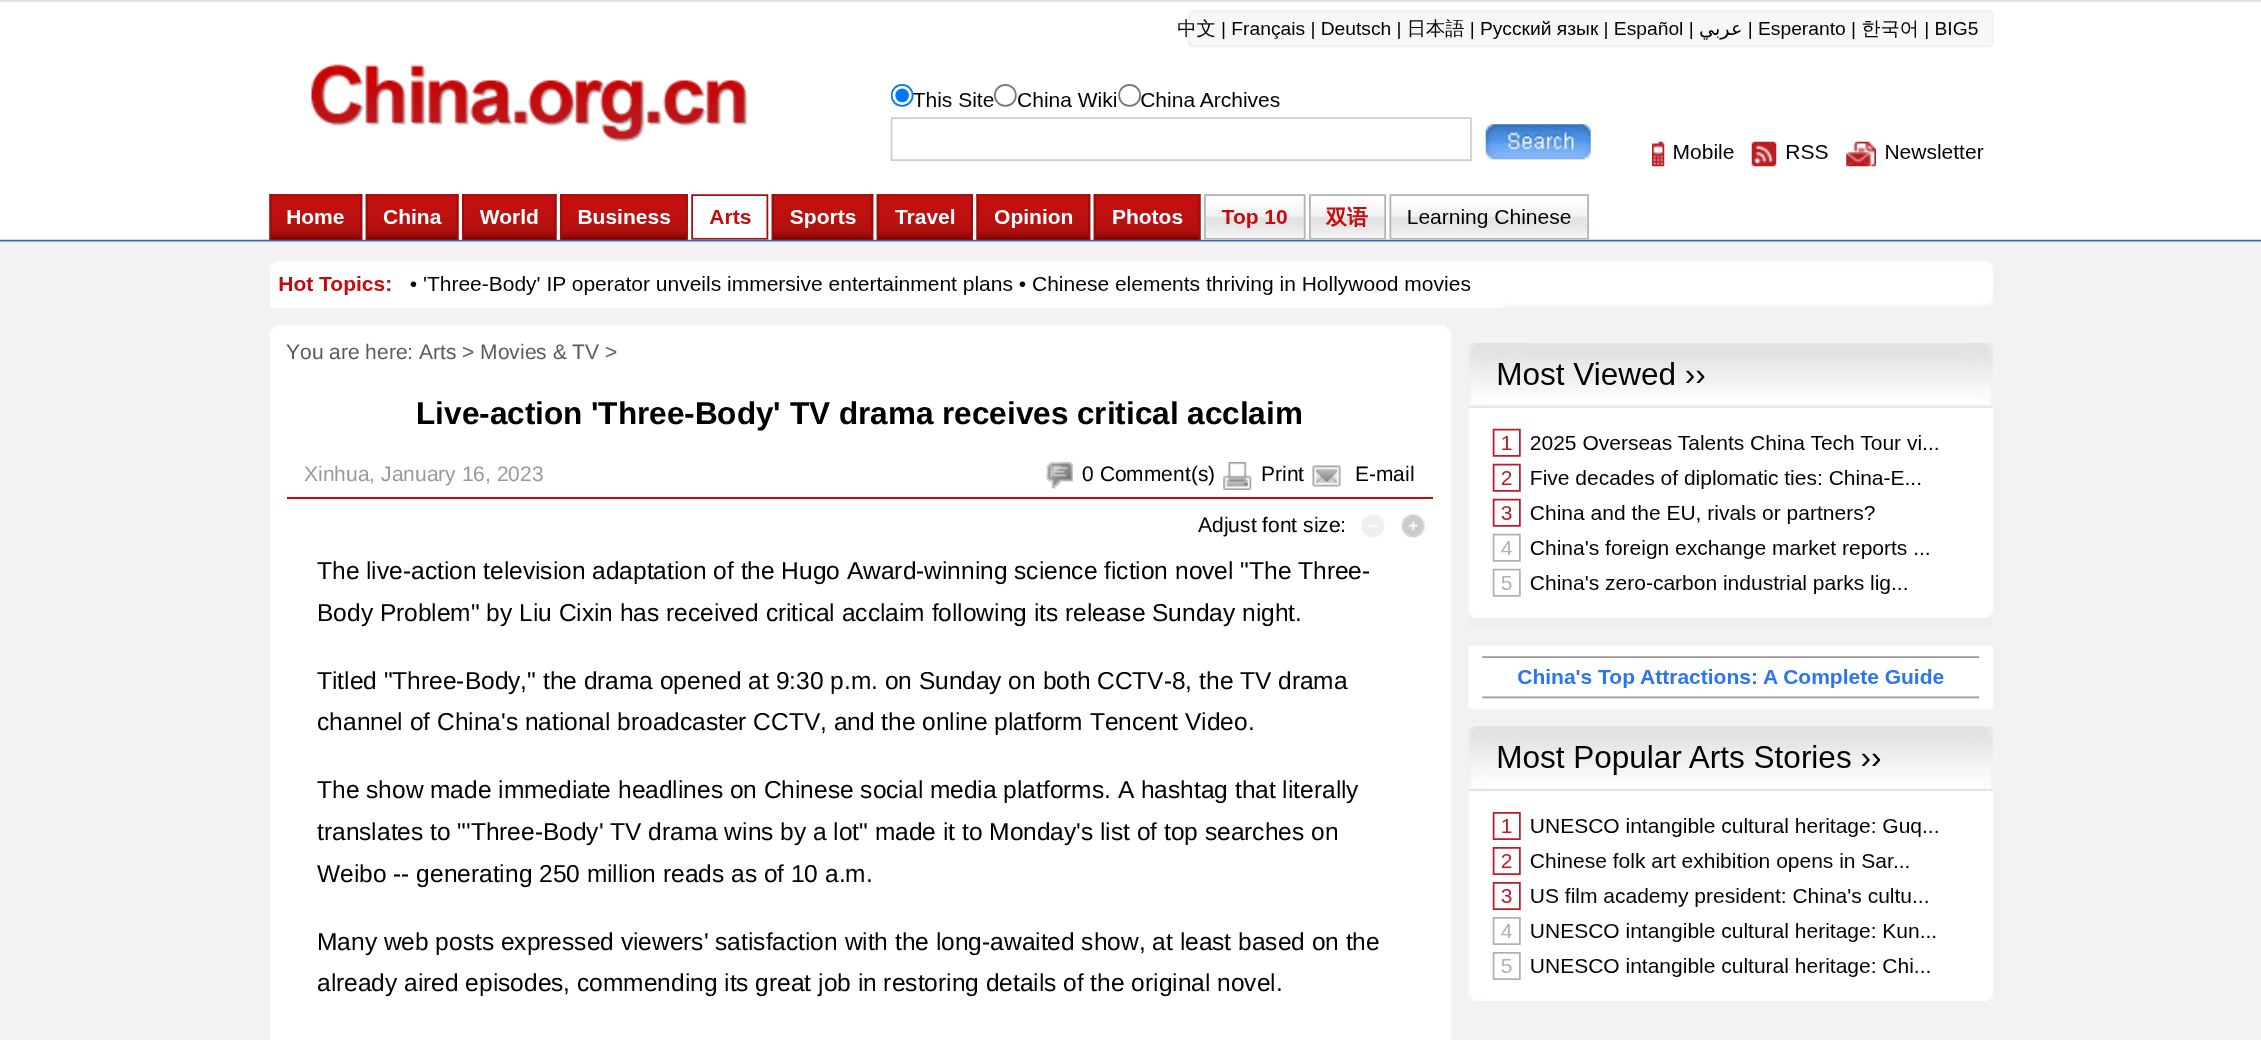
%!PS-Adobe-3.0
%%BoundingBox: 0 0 2261 1040
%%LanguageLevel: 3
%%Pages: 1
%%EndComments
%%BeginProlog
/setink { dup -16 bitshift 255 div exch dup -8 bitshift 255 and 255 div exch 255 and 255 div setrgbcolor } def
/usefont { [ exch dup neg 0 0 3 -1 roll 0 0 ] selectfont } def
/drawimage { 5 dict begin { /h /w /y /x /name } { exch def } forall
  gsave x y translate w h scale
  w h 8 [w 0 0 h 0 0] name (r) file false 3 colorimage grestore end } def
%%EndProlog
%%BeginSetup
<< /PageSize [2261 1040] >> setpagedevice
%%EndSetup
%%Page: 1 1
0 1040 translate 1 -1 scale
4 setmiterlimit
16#F2F2F2 setink
0 0 2261 1040 rectfill
(img1.raw) 0 0 2261 242 drawimage
(img2.raw) 270 260 1723 48 drawimage
16#FFFFFF setink
270 326 1181 714 rectfill
(img3.raw) 270 325 1181 6 drawimage
/LiberationSans-Regular 21 usefont
16#5B5B5B setink
286 359 moveto (You are here: Arts > Movies & TV >) show
/LiberationSans-Bold 31.5 usefont
16#000000 setink
416 424 moveto (Live-action 'Three-Body' TV drama receives critical acclaim) show
16#C50A0C setink
287 497 1146 2 rectfill
/LiberationSans-Regular 21 usefont
16#999999 setink
304 481 moveto (Xinhua, January 16, 2023) show
(img4.raw) 1046 462 27 27 drawimage
16#000000 setink
1082 481 moveto (0 Comment\(s\)) show
(img5.raw) 1223 462 29 28 drawimage
1261 481 moveto (Print) show
(img6.raw) 1312 465 29 22 drawimage
1355 481 moveto (E-mail) show
1198 532 moveto (Adjust font size:) show
(img7.raw) 1361 514 24 24 drawimage
(img8.raw) 1401 514 24 24 drawimage
/LiberationSans-Regular 24.5 usefont
[
    [(The live-action television adaptation of the Hugo Award-winning science fiction novel "The Three-) 317 579]
    [(Body Problem" by Liu Cixin has received critical acclaim following its release Sunday night.) 317 621]
    [(Titled "Three-Body," the drama opened at 9:30 p.m. on Sunday on both CCTV-8, the TV drama) 317 689]
    [(channel of China's national broadcaster CCTV, and the online platform Tencent Video.) 317 730]
    [(The show made immediate headlines on Chinese social media platforms. A hashtag that literally) 317 798]
    [(translates to "'Three-Body' TV drama wins by a lot" made it to Monday's list of top searches on) 317 840]
    [(Weibo -- generating 250 million reads as of 10 a.m.) 317 882]
    [(Many web posts expressed viewers' satisfaction with the long-awaited show, at least based on the) 317 950]
    [(already aired episodes, commending its great job in restoring details of the original novel.) 317 991]
] { aload pop moveto show } forall
(img9.raw) 1468 343 525 658 drawimage
showpage
%%EOF
